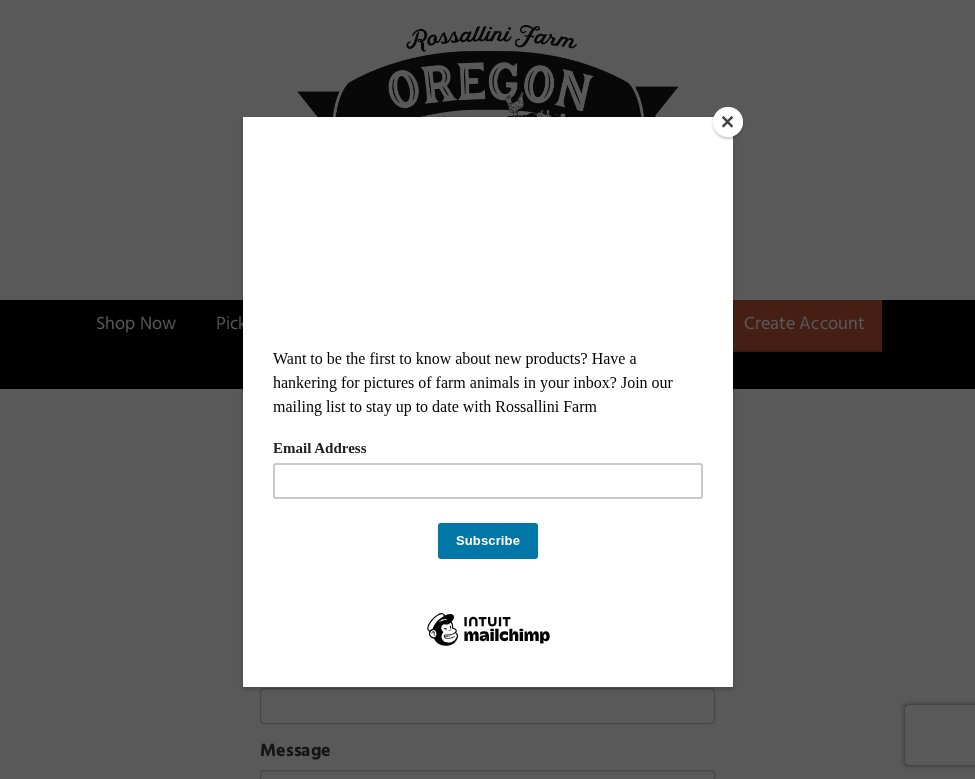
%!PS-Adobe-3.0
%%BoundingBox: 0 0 975 779
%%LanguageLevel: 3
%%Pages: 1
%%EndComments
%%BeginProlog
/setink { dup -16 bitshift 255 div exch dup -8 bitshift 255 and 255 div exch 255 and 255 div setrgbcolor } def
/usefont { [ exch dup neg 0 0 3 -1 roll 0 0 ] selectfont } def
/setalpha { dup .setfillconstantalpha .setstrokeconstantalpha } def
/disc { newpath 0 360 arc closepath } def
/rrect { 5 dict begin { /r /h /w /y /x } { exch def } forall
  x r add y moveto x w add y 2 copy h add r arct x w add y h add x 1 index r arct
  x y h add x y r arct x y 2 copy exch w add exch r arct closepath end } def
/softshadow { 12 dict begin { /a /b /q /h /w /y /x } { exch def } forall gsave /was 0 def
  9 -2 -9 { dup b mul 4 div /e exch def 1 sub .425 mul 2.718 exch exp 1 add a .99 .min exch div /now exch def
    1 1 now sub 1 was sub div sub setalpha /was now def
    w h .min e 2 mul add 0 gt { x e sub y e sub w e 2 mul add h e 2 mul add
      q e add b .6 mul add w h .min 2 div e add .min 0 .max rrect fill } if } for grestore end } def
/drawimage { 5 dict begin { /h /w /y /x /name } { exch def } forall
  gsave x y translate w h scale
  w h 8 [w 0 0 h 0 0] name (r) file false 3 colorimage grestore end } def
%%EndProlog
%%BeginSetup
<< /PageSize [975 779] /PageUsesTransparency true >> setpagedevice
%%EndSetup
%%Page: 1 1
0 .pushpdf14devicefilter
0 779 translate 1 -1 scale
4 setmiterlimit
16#595959 setink
0 0 975 779 rectfill
(img2.raw) 297 25 382 92 drawimage
[
    [0 300 975 89 16#000000]
    [733 300 149 50 16#461F14]
    [726 350 156 2 16#3F180D]
] { aload pop setink rectfill } forall
16#535353 setink
264 690 moveto 711 690 lineto 713 690 714 691 714 693 curveto 714 691 lineto 712 689 lineto 263 689 lineto 261 690 261 691 261 693 curveto 261 691 262 690 264 690 curveto closepath fill
16#474747 setink
260.5 688.5 454 35 3.5 rrect stroke
16#000000 setink
243 119 490 570 0 2 0.2 softshadow
/Hind-Regular 18 usefont
16#595959 setink
216 329 moveto (Pick) show
(img1.raw) 243 117 490 570 drawimage
16#000000 setink
713 109 30 30 15 1 0.2 softshadow
16#FFFFFF setink
728 122 15 disc fill
16#414141 setink
731.5 116 moveto 733 117.5 lineto 723.5 127.5 lineto 722 126 lineto closepath fill
722 117.5 moveto 723.5 116 lineto 733 126 lineto 731.5 127.5 lineto closepath fill
16#595959 setink
96 329 moveto (Shop Now) show
744 329 moveto (Create Account) show
/Hind-Bold 18 usefont
16#151515 setink
260 756 moveto (Message) show
16#535353 setink
264 772 moveto 711 772 lineto 713 772 714 773 714 775 curveto 714 773 lineto 712 771 lineto 263 771 lineto 261 772 261 773 261 775 curveto 261 773 262 772 264 772 curveto closepath fill
16#474747 setink
260.5 770.5 454 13 3.5 rrect stroke
gsave
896 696 moveto 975 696 lineto 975 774 lineto 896 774 lineto closepath 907 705 moveto 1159 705 lineto 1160 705 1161 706 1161 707 curveto 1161 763 lineto 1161 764 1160 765 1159 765 curveto 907 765 lineto 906 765 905 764 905 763 curveto 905 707 lineto 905 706 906 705 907 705 curveto closepath eoclip newpath
16#2D2D2D setink
905 705 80 60 2 2.5 1 softshadow
grestore
.poppdf14devicefilter showpage
%%EOF
